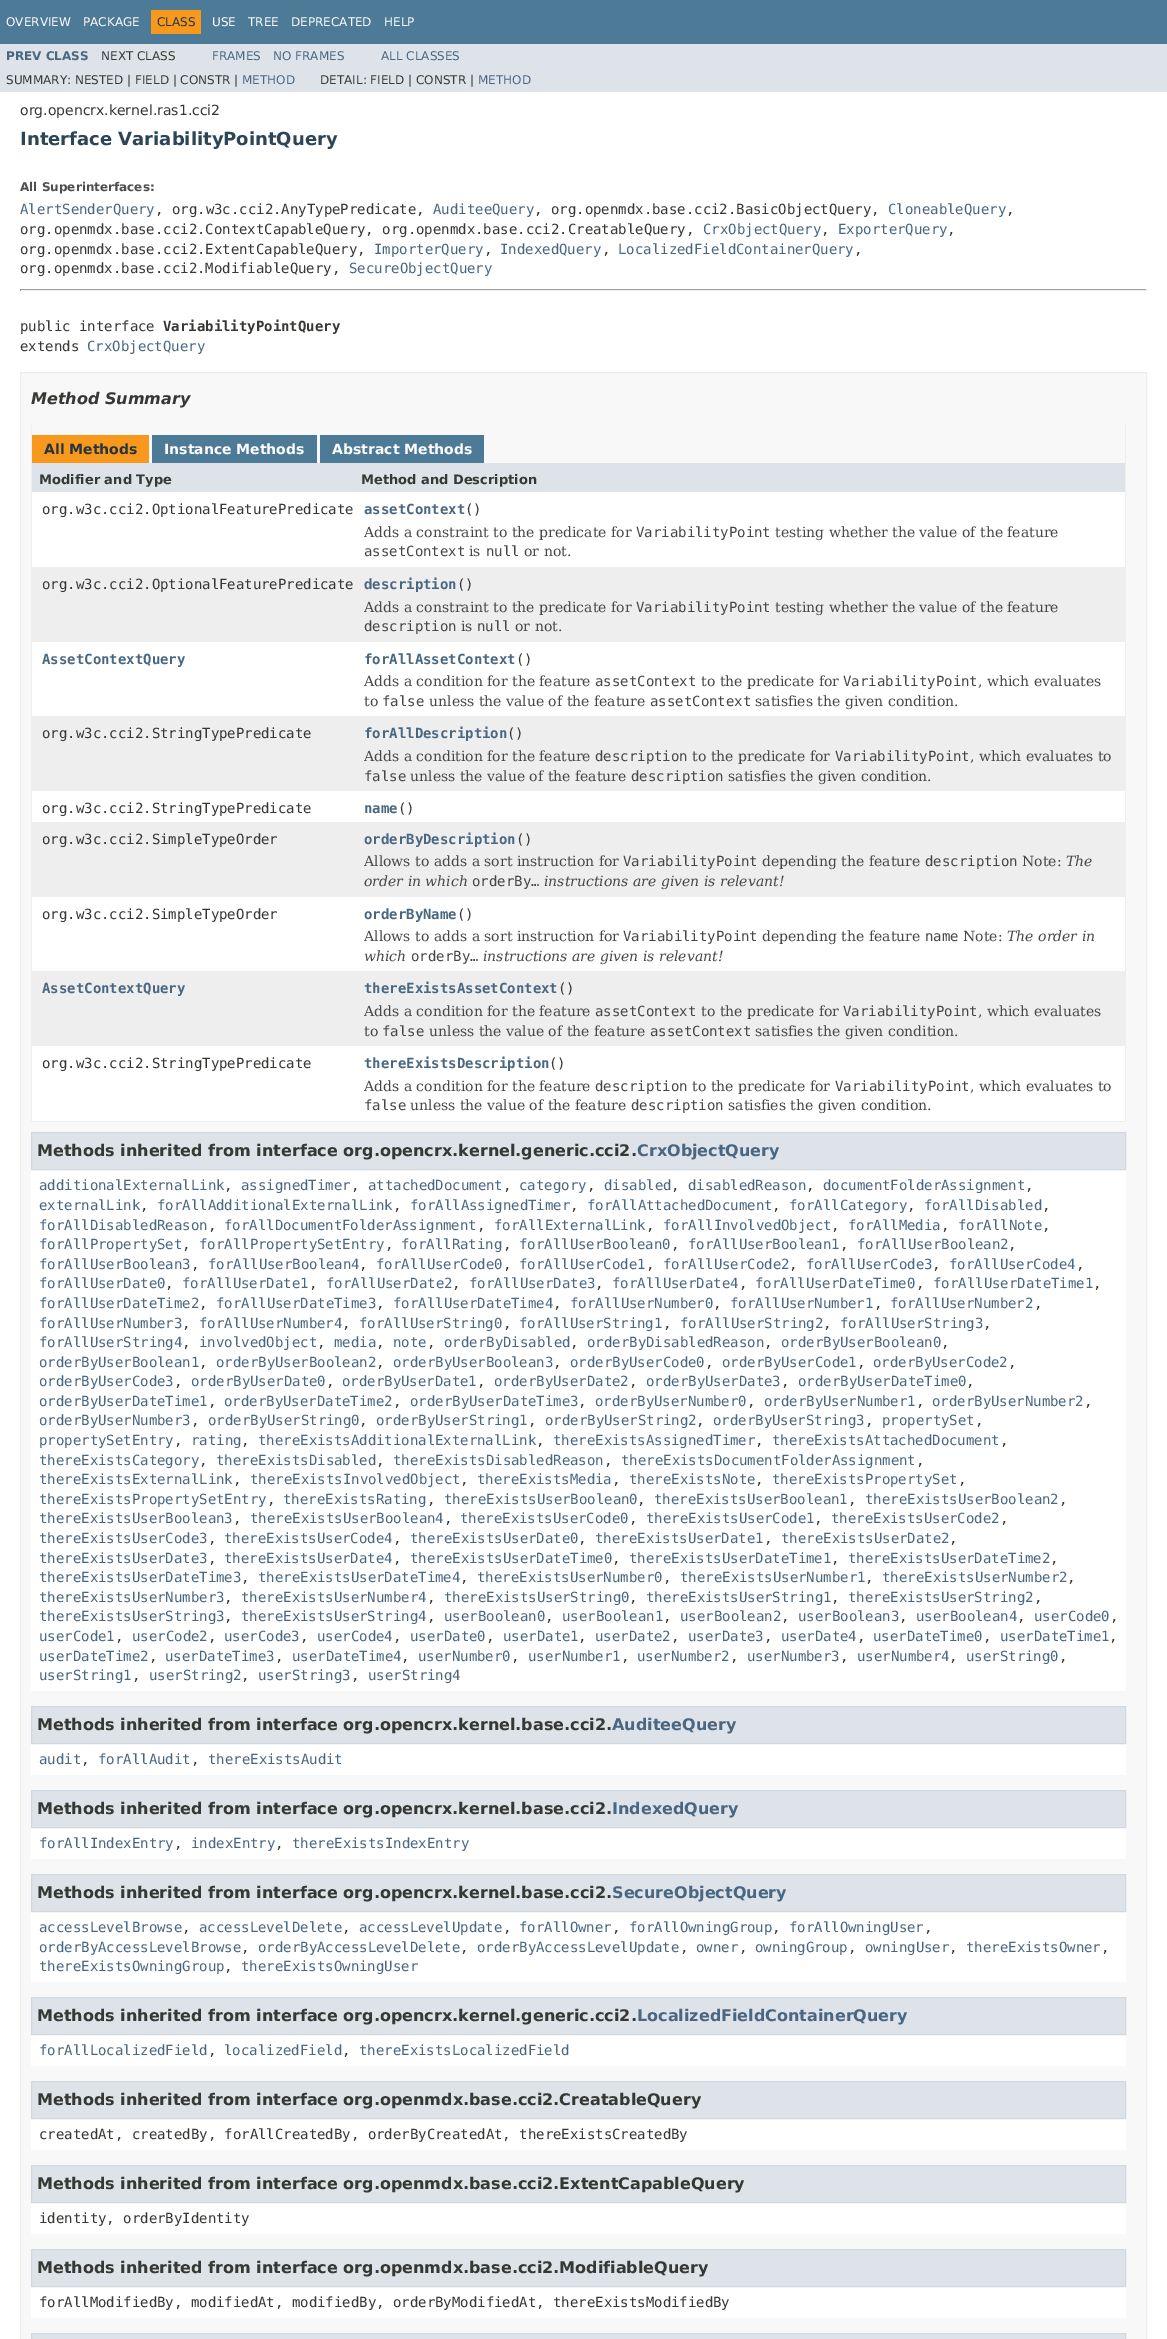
%!PS-Adobe-3.0
%%BoundingBox: 0 0 1167 2339
%%LanguageLevel: 3
%%Pages: 1
%%EndComments
%%BeginProlog
/setink { dup -16 bitshift 255 div exch dup -8 bitshift 255 and 255 div exch 255 and 255 div setrgbcolor } def
/usefont { [ exch dup neg 0 0 3 -1 roll 0 0 ] selectfont } def
%%EndProlog
%%BeginSetup
<< /PageSize [1167 2339] >> setpagedevice
%%EndSetup
%%Page: 1 1
0 2339 translate 1 -1 scale
4 setmiterlimit
16#FFFFFF setink
0 0 1167 2339 rectfill
16#4D7A97 setink
0 0 1167 44 rectfill
/DejaVuSans-Regular 12 usefont
16#FFFFFF setink
6 26 moveto (OVERVIEW) show
83 26 moveto (PACKAGE) show
16#F8981D setink
151 10 50 24 rectfill
16#253441 setink
157 26 moveto (CLASS) show
16#FFFFFF setink
[
    [(USE) 212 26]
    [(TREE) 248 26]
    [(DEPRECATED) 291 26]
    [(HELP) 384 26]
] { aload pop moveto show } forall
16#DEE3E9 setink
0 44 1167 48 rectfill
/DejaVuSans-Bold 12 usefont
16#4A6782 setink
6 60 moveto (PREV CLASS) show
/DejaVuSans-Regular 12 usefont
16#353833 setink
101 60 moveto (NEXT CLASS) show
16#4A6782 setink
[
    [(FRAMES) 212 60]
    [(NO FRAMES) 273 60]
    [(ALL CLASSES) 381 60]
] { aload pop moveto show } forall
16#353833 setink
6 84 moveto (SUMMARY: NESTED | FIELD | CONSTR |) show
16#4A6782 setink
242 84 moveto (METHOD) show
16#353833 setink
320 84 moveto (DETAIL: FIELD | CONSTR |) show
16#4A6782 setink
478 84 moveto (METHOD) show
/DejaVuSans-Regular 14 usefont
16#353833 setink
20 115 moveto (org.opencrx.kernel.ras1.cci2) show
/DejaVuSans-Bold 18 usefont
16#2C4557 setink
20 145 moveto (Interface VariabilityPointQuery) show
/DejaVuSans-Bold 12 usefont
16#4E4E4E setink
20 191 moveto (All Superinterfaces:) show
/DejaVuSansMono-Regular 14 usefont
16#4A6782 setink
20 214 moveto (AlertSenderQuery) show
16#353833 setink
155 214 moveto (, org.w3c.cci2.AnyTypePredicate,) show
16#4A6782 setink
433 214 moveto (AuditeeQuery) show
16#353833 setink
534 214 moveto (, org.openmdx.base.cci2.BasicObjectQuery,) show
16#4A6782 setink
888 214 moveto (CloneableQuery) show
16#353833 setink
1006 214 moveto (,) show
20 234 moveto (org.openmdx.base.cci2.ContextCapableQuery, org.openmdx.base.cci2.CreatableQuery,) show
16#4A6782 setink
703 234 moveto (CrxObjectQuery) show
16#353833 setink
821 234 moveto (,) show
16#4A6782 setink
838 234 moveto (ExporterQuery) show
16#353833 setink
947 234 moveto (,) show
20 254 moveto (org.openmdx.base.cci2.ExtentCapableQuery,) show
16#4A6782 setink
374 254 moveto (ImporterQuery) show
16#353833 setink
484 254 moveto (,) show
16#4A6782 setink
500 254 moveto (IndexedQuery) show
16#353833 setink
602 254 moveto (,) show
16#4A6782 setink
618 254 moveto (LocalizedFieldContainerQuery) show
16#353833 setink
854 254 moveto (,) show
20 273 moveto (org.openmdx.base.cci2.ModifiableQuery,) show
16#4A6782 setink
349 273 moveto (SecureObjectQuery) show
[
    [20 289 1127 1 16#9F9F9F]
    [1146 289 1 2 16#EEEEEE]
    [20 290 1127 1 16#EEEEEE]
    [20 289 1 2 16#9F9F9F]
] { aload pop setink rectfill } forall
16#353833 setink
20 331 moveto (public interface) show
/DejaVuSansMono-Bold 14 usefont
163 331 moveto (VariabilityPointQuery) show
/DejaVuSansMono-Regular 14 usefont
20 351 moveto (extends) show
16#4A6782 setink
87 351 moveto (CrxObjectQuery) show
16#F8F8F8 setink
20.5 372.5 moveto 1146.5 372.5 lineto 1146.5 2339.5 lineto 20.5 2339.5 lineto closepath gsave fill grestore
16#EDEDED setink
stroke
/DejaVuSans-BoldItalic 16 usefont
16#353833 setink
31 404 moveto (Method Summary) show
[
    [1125 425 1 697 16#EEEEEE]
    [31 1121 1095 1 16#EEEEEE]
    [31 425 1 697 16#EEEEEE]
    [32 435 117 28 16#F8981D]
] { aload pop setink rectfill } forall
/DejaVuSans-Bold 14 usefont
16#253441 setink
44 454 moveto (All Methods) show
16#4D7A97 setink
152 435 165 28 rectfill
16#FFFFFF setink
164 454 moveto (Instance Methods) show
16#4D7A97 setink
320 435 164 28 rectfill
16#FFFFFF setink
332 454 moveto (Abstract Methods) show
16#DEE3E9 setink
32 463 1093 29 rectfill
/DejaVuSans-Bold 13 usefont
16#353833 setink
39 484 moveto (Modifier and Type) show
361 484 moveto (Method and Description) show
16#FFFFFF setink
32 492 1093 75 rectfill
/DejaVuSansMono-Regular 14 usefont
16#353833 setink
42 514 moveto (org.w3c.cci2.OptionalFeaturePredicate) show
/DejaVuSansMono-Bold 14 usefont
16#4A6782 setink
364 514 moveto (assetContext) show
/DejaVuSansMono-Regular 14 usefont
16#353833 setink
465 514 moveto (\(\)) show
/DejaVuSerif-Regular 14 usefont
16#474747 setink
364 537 moveto (Adds a constraint to the predicate for) show
/DejaVuSansMono-Regular 14 usefont
636 537 moveto (VariabilityPoint) show
/DejaVuSerif-Regular 14 usefont
775 537 moveto (testing whether the value of the feature) show
/DejaVuSansMono-Regular 14 usefont
364 556 moveto (assetContext) show
/DejaVuSerif-Regular 14 usefont
469 556 moveto (is) show
/DejaVuSansMono-Regular 14 usefont
486 556 moveto (null) show
/DejaVuSerif-Regular 14 usefont
524 556 moveto (or not.) show
16#EEEEEF setink
32 567 1093 75 rectfill
/DejaVuSansMono-Regular 14 usefont
16#353833 setink
42 589 moveto (org.w3c.cci2.OptionalFeaturePredicate) show
/DejaVuSansMono-Bold 14 usefont
16#4A6782 setink
364 589 moveto (description) show
/DejaVuSansMono-Regular 14 usefont
16#353833 setink
457 589 moveto (\(\)) show
/DejaVuSerif-Regular 14 usefont
16#474747 setink
364 612 moveto (Adds a constraint to the predicate for) show
/DejaVuSansMono-Regular 14 usefont
636 612 moveto (VariabilityPoint) show
/DejaVuSerif-Regular 14 usefont
775 612 moveto (testing whether the value of the feature) show
/DejaVuSansMono-Regular 14 usefont
364 631 moveto (description) show
/DejaVuSerif-Regular 14 usefont
461 631 moveto (is) show
/DejaVuSansMono-Regular 14 usefont
477 631 moveto (null) show
/DejaVuSerif-Regular 14 usefont
515 631 moveto (or not.) show
16#FFFFFF setink
32 642 1093 74 rectfill
/DejaVuSansMono-Bold 14 usefont
16#4A6782 setink
42 664 moveto (AssetContextQuery) show
364 664 moveto (forAllAssetContext) show
/DejaVuSansMono-Regular 14 usefont
16#353833 setink
516 664 moveto (\(\)) show
/DejaVuSerif-Regular 14 usefont
16#474747 setink
364 686 moveto (Adds a condition for the feature) show
/DejaVuSansMono-Regular 14 usefont
595 686 moveto (assetContext) show
/DejaVuSerif-Regular 14 usefont
701 686 moveto (to the predicate for) show
/DejaVuSansMono-Regular 14 usefont
843 686 moveto (VariabilityPoint) show
/DejaVuSerif-Regular 14 usefont
978 686 moveto (, which evaluates) show
364 706 moveto (to) show
/DejaVuSansMono-Regular 14 usefont
382 706 moveto (false) show
/DejaVuSerif-Regular 14 usefont
429 706 moveto (unless the value of the feature) show
/DejaVuSansMono-Regular 14 usefont
650 706 moveto (assetContext) show
/DejaVuSerif-Regular 14 usefont
755 706 moveto (satisfies the given condition.) show
16#EEEEEF setink
32 716 1093 75 rectfill
/DejaVuSansMono-Regular 14 usefont
16#353833 setink
42 738 moveto (org.w3c.cci2.StringTypePredicate) show
/DejaVuSansMono-Bold 14 usefont
16#4A6782 setink
364 738 moveto (forAllDescription) show
/DejaVuSansMono-Regular 14 usefont
16#353833 setink
507 738 moveto (\(\)) show
/DejaVuSerif-Regular 14 usefont
16#474747 setink
364 761 moveto (Adds a condition for the feature) show
/DejaVuSansMono-Regular 14 usefont
595 761 moveto (description) show
/DejaVuSerif-Regular 14 usefont
692 761 moveto (to the predicate for) show
/DejaVuSansMono-Regular 14 usefont
835 761 moveto (VariabilityPoint) show
/DejaVuSerif-Regular 14 usefont
970 761 moveto (, which evaluates to) show
/DejaVuSansMono-Regular 14 usefont
364 781 moveto (false) show
/DejaVuSerif-Regular 14 usefont
410 781 moveto (unless the value of the feature) show
/DejaVuSansMono-Regular 14 usefont
631 781 moveto (description) show
/DejaVuSerif-Regular 14 usefont
728 781 moveto (satisfies the given condition.) show
16#FFFFFF setink
32 791 1093 31 rectfill
/DejaVuSansMono-Regular 14 usefont
16#353833 setink
42 813 moveto (org.w3c.cci2.StringTypePredicate) show
/DejaVuSansMono-Bold 14 usefont
16#4A6782 setink
364 813 moveto (name) show
/DejaVuSansMono-Regular 14 usefont
16#353833 setink
398 813 moveto (\(\)) show
16#EEEEEF setink
32 822 1093 75 rectfill
16#353833 setink
42 844 moveto (org.w3c.cci2.SimpleTypeOrder) show
/DejaVuSansMono-Bold 14 usefont
16#4A6782 setink
364 844 moveto (orderByDescription) show
/DejaVuSansMono-Regular 14 usefont
16#353833 setink
516 844 moveto (\(\)) show
/DejaVuSerif-Regular 14 usefont
16#474747 setink
364 866 moveto (Allows to adds a sort instruction for) show
/DejaVuSansMono-Regular 14 usefont
623 866 moveto (VariabilityPoint) show
/DejaVuSerif-Regular 14 usefont
762 866 moveto (depending the feature) show
/DejaVuSansMono-Regular 14 usefont
925 866 moveto (description) show
/DejaVuSerif-Regular 14 usefont
1022 866 moveto (Note:) show
/DejaVuSerif-Italic 14 usefont
1066 866 moveto (The) show
364 886 moveto (order in which) show
/DejaVuSansMono-Regular 14 usefont
472 886 moveto (orderBy…) show
/DejaVuSerif-Italic 14 usefont
544 886 moveto (instructions are given is relevant!) show
16#FFFFFF setink
32 897 1093 74 rectfill
/DejaVuSansMono-Regular 14 usefont
16#353833 setink
42 919 moveto (org.w3c.cci2.SimpleTypeOrder) show
/DejaVuSansMono-Bold 14 usefont
16#4A6782 setink
364 919 moveto (orderByName) show
/DejaVuSansMono-Regular 14 usefont
16#353833 setink
457 919 moveto (\(\)) show
/DejaVuSerif-Regular 14 usefont
16#474747 setink
364 941 moveto (Allows to adds a sort instruction for) show
/DejaVuSansMono-Regular 14 usefont
623 941 moveto (VariabilityPoint) show
/DejaVuSerif-Regular 14 usefont
762 941 moveto (depending the feature) show
/DejaVuSansMono-Regular 14 usefont
925 941 moveto (name) show
/DejaVuSerif-Regular 14 usefont
963 941 moveto (Note:) show
/DejaVuSerif-Italic 14 usefont
1007 941 moveto (The order in) show
364 961 moveto (which) show
/DejaVuSansMono-Regular 14 usefont
411 961 moveto (orderBy…) show
/DejaVuSerif-Italic 14 usefont
483 961 moveto (instructions are given is relevant!) show
16#EEEEEF setink
32 971 1093 75 rectfill
/DejaVuSansMono-Bold 14 usefont
16#4A6782 setink
42 993 moveto (AssetContextQuery) show
364 993 moveto (thereExistsAssetContext) show
/DejaVuSansMono-Regular 14 usefont
16#353833 setink
558 993 moveto (\(\)) show
/DejaVuSerif-Regular 14 usefont
16#474747 setink
364 1016 moveto (Adds a condition for the feature) show
/DejaVuSansMono-Regular 14 usefont
595 1016 moveto (assetContext) show
/DejaVuSerif-Regular 14 usefont
701 1016 moveto (to the predicate for) show
/DejaVuSansMono-Regular 14 usefont
843 1016 moveto (VariabilityPoint) show
/DejaVuSerif-Regular 14 usefont
978 1016 moveto (, which evaluates) show
364 1036 moveto (to) show
/DejaVuSansMono-Regular 14 usefont
382 1036 moveto (false) show
/DejaVuSerif-Regular 14 usefont
429 1036 moveto (unless the value of the feature) show
/DejaVuSansMono-Regular 14 usefont
650 1036 moveto (assetContext) show
/DejaVuSerif-Regular 14 usefont
755 1036 moveto (satisfies the given condition.) show
16#FFFFFF setink
32 1046 1093 75 rectfill
/DejaVuSansMono-Regular 14 usefont
16#353833 setink
42 1068 moveto (org.w3c.cci2.StringTypePredicate) show
/DejaVuSansMono-Bold 14 usefont
16#4A6782 setink
364 1068 moveto (thereExistsDescription) show
/DejaVuSansMono-Regular 14 usefont
16#353833 setink
549 1068 moveto (\(\)) show
/DejaVuSerif-Regular 14 usefont
16#474747 setink
364 1091 moveto (Adds a condition for the feature) show
/DejaVuSansMono-Regular 14 usefont
595 1091 moveto (description) show
/DejaVuSerif-Regular 14 usefont
692 1091 moveto (to the predicate for) show
/DejaVuSansMono-Regular 14 usefont
835 1091 moveto (VariabilityPoint) show
/DejaVuSerif-Regular 14 usefont
970 1091 moveto (, which evaluates to) show
/DejaVuSansMono-Regular 14 usefont
364 1110 moveto (false) show
/DejaVuSerif-Regular 14 usefont
410 1110 moveto (unless the value of the feature) show
/DejaVuSansMono-Regular 14 usefont
631 1110 moveto (description) show
/DejaVuSerif-Regular 14 usefont
728 1110 moveto (satisfies the given condition.) show
16#FFFFFF setink
31 1170 1095 521 rectfill
16#DEE3E9 setink
31.5 1132.5 moveto 1125.5 1132.5 lineto 1125.5 1169.5 lineto 31.5 1169.5 lineto closepath gsave fill grestore
16#D0D9E0 setink
stroke
/DejaVuSans-Bold 16 usefont
16#353833 setink
37 1156 moveto (Methods inherited from interface org.opencrx.kernel.generic.cci2.) show
16#4A6782 setink
637 1156 moveto (CrxObjectQuery) show
/DejaVuSansMono-Regular 14 usefont
39 1190 moveto (additionalExternalLink) show
16#353833 setink
224 1190 moveto (,) show
16#4A6782 setink
241 1190 moveto (assignedTimer) show
16#353833 setink
351 1190 moveto (,) show
16#4A6782 setink
368 1190 moveto (attachedDocument) show
16#353833 setink
503 1190 moveto (,) show
16#4A6782 setink
519 1190 moveto (category) show
16#353833 setink
587 1190 moveto (,) show
16#4A6782 setink
604 1190 moveto (disabled) show
16#353833 setink
671 1190 moveto (,) show
16#4A6782 setink
688 1190 moveto (disabledReason) show
16#353833 setink
806 1190 moveto (,) show
16#4A6782 setink
823 1190 moveto (documentFolderAssignment) show
16#353833 setink
1025 1190 moveto (,) show
16#4A6782 setink
39 1210 moveto (externalLink) show
16#353833 setink
140 1210 moveto (,) show
16#4A6782 setink
157 1210 moveto (forAllAdditionalExternalLink) show
16#353833 setink
393 1210 moveto (,) show
16#4A6782 setink
410 1210 moveto (forAllAssignedTimer) show
16#353833 setink
570 1210 moveto (,) show
16#4A6782 setink
587 1210 moveto (forAllAttachedDocument) show
16#353833 setink
772 1210 moveto (,) show
16#4A6782 setink
789 1210 moveto (forAllCategory) show
16#353833 setink
907 1210 moveto (,) show
16#4A6782 setink
924 1210 moveto (forAllDisabled) show
16#353833 setink
1042 1210 moveto (,) show
16#4A6782 setink
39 1230 moveto (forAllDisabledReason) show
16#353833 setink
208 1230 moveto (,) show
16#4A6782 setink
224 1230 moveto (forAllDocumentFolderAssignment) show
16#353833 setink
477 1230 moveto (,) show
16#4A6782 setink
494 1230 moveto (forAllExternalLink) show
16#353833 setink
646 1230 moveto (,) show
16#4A6782 setink
663 1230 moveto (forAllInvolvedObject) show
16#353833 setink
831 1230 moveto (,) show
16#4A6782 setink
848 1230 moveto (forAllMedia) show
16#353833 setink
941 1230 moveto (,) show
16#4A6782 setink
958 1230 moveto (forAllNote) show
16#353833 setink
1042 1230 moveto (,) show
16#4A6782 setink
39 1249 moveto (forAllPropertySet) show
16#353833 setink
182 1249 moveto (,) show
16#4A6782 setink
199 1249 moveto (forAllPropertySetEntry) show
16#353833 setink
385 1249 moveto (,) show
16#4A6782 setink
401 1249 moveto (forAllRating) show
16#353833 setink
503 1249 moveto (,) show
16#4A6782 setink
519 1249 moveto (forAllUserBoolean0) show
16#353833 setink
671 1249 moveto (,) show
16#4A6782 setink
688 1249 moveto (forAllUserBoolean1) show
16#353833 setink
840 1249 moveto (,) show
16#4A6782 setink
857 1249 moveto (forAllUserBoolean2) show
16#353833 setink
1008 1249 moveto (,) show
16#4A6782 setink
39 1269 moveto (forAllUserBoolean3) show
16#353833 setink
191 1269 moveto (,) show
16#4A6782 setink
208 1269 moveto (forAllUserBoolean4) show
16#353833 setink
359 1269 moveto (,) show
16#4A6782 setink
376 1269 moveto (forAllUserCode0) show
16#353833 setink
503 1269 moveto (,) show
16#4A6782 setink
519 1269 moveto (forAllUserCode1) show
16#353833 setink
646 1269 moveto (,) show
16#4A6782 setink
663 1269 moveto (forAllUserCode2) show
16#353833 setink
789 1269 moveto (,) show
16#4A6782 setink
806 1269 moveto (forAllUserCode3) show
16#353833 setink
932 1269 moveto (,) show
16#4A6782 setink
949 1269 moveto (forAllUserCode4) show
16#353833 setink
1076 1269 moveto (,) show
16#4A6782 setink
39 1288 moveto (forAllUserDate0) show
16#353833 setink
165 1288 moveto (,) show
16#4A6782 setink
182 1288 moveto (forAllUserDate1) show
16#353833 setink
309 1288 moveto (,) show
16#4A6782 setink
326 1288 moveto (forAllUserDate2) show
16#353833 setink
452 1288 moveto (,) show
16#4A6782 setink
469 1288 moveto (forAllUserDate3) show
16#353833 setink
595 1288 moveto (,) show
16#4A6782 setink
612 1288 moveto (forAllUserDate4) show
16#353833 setink
739 1288 moveto (,) show
16#4A6782 setink
755 1288 moveto (forAllUserDateTime0) show
16#353833 setink
916 1288 moveto (,) show
16#4A6782 setink
933 1288 moveto (forAllUserDateTime1) show
16#353833 setink
1093 1288 moveto (,) show
16#4A6782 setink
39 1308 moveto (forAllUserDateTime2) show
16#353833 setink
199 1308 moveto (,) show
16#4A6782 setink
216 1308 moveto (forAllUserDateTime3) show
16#353833 setink
376 1308 moveto (,) show
16#4A6782 setink
393 1308 moveto (forAllUserDateTime4) show
16#353833 setink
553 1308 moveto (,) show
16#4A6782 setink
570 1308 moveto (forAllUserNumber0) show
16#353833 setink
713 1308 moveto (,) show
16#4A6782 setink
730 1308 moveto (forAllUserNumber1) show
16#353833 setink
874 1308 moveto (,) show
16#4A6782 setink
890 1308 moveto (forAllUserNumber2) show
16#353833 setink
1034 1308 moveto (,) show
16#4A6782 setink
39 1328 moveto (forAllUserNumber3) show
16#353833 setink
182 1328 moveto (,) show
16#4A6782 setink
199 1328 moveto (forAllUserNumber4) show
16#353833 setink
342 1328 moveto (,) show
16#4A6782 setink
359 1328 moveto (forAllUserString0) show
16#353833 setink
503 1328 moveto (,) show
16#4A6782 setink
519 1328 moveto (forAllUserString1) show
16#353833 setink
663 1328 moveto (,) show
16#4A6782 setink
680 1328 moveto (forAllUserString2) show
16#353833 setink
823 1328 moveto (,) show
16#4A6782 setink
840 1328 moveto (forAllUserString3) show
16#353833 setink
983 1328 moveto (,) show
16#4A6782 setink
39 1347 moveto (forAllUserString4) show
16#353833 setink
182 1347 moveto (,) show
16#4A6782 setink
199 1347 moveto (involvedObject) show
16#353833 setink
317 1347 moveto (,) show
16#4A6782 setink
334 1347 moveto (media) show
16#353833 setink
376 1347 moveto (,) show
16#4A6782 setink
393 1347 moveto (note) show
16#353833 setink
427 1347 moveto (,) show
16#4A6782 setink
444 1347 moveto (orderByDisabled) show
16#353833 setink
570 1347 moveto (,) show
16#4A6782 setink
587 1347 moveto (orderByDisabledReason) show
16#353833 setink
764 1347 moveto (,) show
16#4A6782 setink
781 1347 moveto (orderByUserBoolean0) show
16#353833 setink
941 1347 moveto (,) show
16#4A6782 setink
39 1367 moveto (orderByUserBoolean1) show
16#353833 setink
199 1367 moveto (,) show
16#4A6782 setink
216 1367 moveto (orderByUserBoolean2) show
16#353833 setink
376 1367 moveto (,) show
16#4A6782 setink
393 1367 moveto (orderByUserBoolean3) show
16#353833 setink
553 1367 moveto (,) show
16#4A6782 setink
570 1367 moveto (orderByUserCode0) show
16#353833 setink
705 1367 moveto (,) show
16#4A6782 setink
722 1367 moveto (orderByUserCode1) show
16#353833 setink
857 1367 moveto (,) show
16#4A6782 setink
873 1367 moveto (orderByUserCode2) show
16#353833 setink
1008 1367 moveto (,) show
16#4A6782 setink
39 1386 moveto (orderByUserCode3) show
16#353833 setink
174 1386 moveto (,) show
16#4A6782 setink
191 1386 moveto (orderByUserDate0) show
16#353833 setink
326 1386 moveto (,) show
16#4A6782 setink
342 1386 moveto (orderByUserDate1) show
16#353833 setink
477 1386 moveto (,) show
16#4A6782 setink
494 1386 moveto (orderByUserDate2) show
16#353833 setink
629 1386 moveto (,) show
16#4A6782 setink
646 1386 moveto (orderByUserDate3) show
16#353833 setink
781 1386 moveto (,) show
16#4A6782 setink
798 1386 moveto (orderByUserDateTime0) show
16#353833 setink
966 1386 moveto (,) show
16#4A6782 setink
39 1406 moveto (orderByUserDateTime1) show
16#353833 setink
208 1406 moveto (,) show
16#4A6782 setink
224 1406 moveto (orderByUserDateTime2) show
16#353833 setink
393 1406 moveto (,) show
16#4A6782 setink
410 1406 moveto (orderByUserDateTime3) show
16#353833 setink
578 1406 moveto (,) show
16#4A6782 setink
595 1406 moveto (orderByUserNumber0) show
16#353833 setink
747 1406 moveto (,) show
16#4A6782 setink
764 1406 moveto (orderByUserNumber1) show
16#353833 setink
916 1406 moveto (,) show
16#4A6782 setink
932 1406 moveto (orderByUserNumber2) show
16#353833 setink
1084 1406 moveto (,) show
16#4A6782 setink
39 1425 moveto (orderByUserNumber3) show
16#353833 setink
191 1425 moveto (,) show
16#4A6782 setink
208 1425 moveto (orderByUserString0) show
16#353833 setink
359 1425 moveto (,) show
16#4A6782 setink
376 1425 moveto (orderByUserString1) show
16#353833 setink
528 1425 moveto (,) show
16#4A6782 setink
545 1425 moveto (orderByUserString2) show
16#353833 setink
696 1425 moveto (,) show
16#4A6782 setink
713 1425 moveto (orderByUserString3) show
16#353833 setink
865 1425 moveto (,) show
16#4A6782 setink
882 1425 moveto (propertySet) show
16#353833 setink
975 1425 moveto (,) show
16#4A6782 setink
39 1445 moveto (propertySetEntry) show
16#353833 setink
174 1445 moveto (,) show
16#4A6782 setink
191 1445 moveto (rating) show
16#353833 setink
241 1445 moveto (,) show
16#4A6782 setink
258 1445 moveto (thereExistsAdditionalExternalLink) show
16#353833 setink
536 1445 moveto (,) show
16#4A6782 setink
553 1445 moveto (thereExistsAssignedTimer) show
16#353833 setink
755 1445 moveto (,) show
16#4A6782 setink
772 1445 moveto (thereExistsAttachedDocument) show
16#353833 setink
1000 1445 moveto (,) show
16#4A6782 setink
39 1465 moveto (thereExistsCategory) show
16#353833 setink
199 1465 moveto (,) show
16#4A6782 setink
216 1465 moveto (thereExistsDisabled) show
16#353833 setink
376 1465 moveto (,) show
16#4A6782 setink
393 1465 moveto (thereExistsDisabledReason) show
16#353833 setink
604 1465 moveto (,) show
16#4A6782 setink
621 1465 moveto (thereExistsDocumentFolderAssignment) show
16#353833 setink
916 1465 moveto (,) show
16#4A6782 setink
39 1484 moveto (thereExistsExternalLink) show
16#353833 setink
233 1484 moveto (,) show
16#4A6782 setink
250 1484 moveto (thereExistsInvolvedObject) show
16#353833 setink
460 1484 moveto (,) show
16#4A6782 setink
477 1484 moveto (thereExistsMedia) show
16#353833 setink
612 1484 moveto (,) show
16#4A6782 setink
629 1484 moveto (thereExistsNote) show
16#353833 setink
755 1484 moveto (,) show
16#4A6782 setink
772 1484 moveto (thereExistsPropertySet) show
16#353833 setink
958 1484 moveto (,) show
16#4A6782 setink
39 1504 moveto (thereExistsPropertySetEntry) show
16#353833 setink
267 1504 moveto (,) show
16#4A6782 setink
283 1504 moveto (thereExistsRating) show
16#353833 setink
427 1504 moveto (,) show
16#4A6782 setink
444 1504 moveto (thereExistsUserBoolean0) show
16#353833 setink
637 1504 moveto (,) show
16#4A6782 setink
654 1504 moveto (thereExistsUserBoolean1) show
16#353833 setink
848 1504 moveto (,) show
16#4A6782 setink
865 1504 moveto (thereExistsUserBoolean2) show
16#353833 setink
1059 1504 moveto (,) show
16#4A6782 setink
39 1523 moveto (thereExistsUserBoolean3) show
16#353833 setink
233 1523 moveto (,) show
16#4A6782 setink
250 1523 moveto (thereExistsUserBoolean4) show
16#353833 setink
444 1523 moveto (,) show
16#4A6782 setink
460 1523 moveto (thereExistsUserCode0) show
16#353833 setink
629 1523 moveto (,) show
16#4A6782 setink
646 1523 moveto (thereExistsUserCode1) show
16#353833 setink
814 1523 moveto (,) show
16#4A6782 setink
831 1523 moveto (thereExistsUserCode2) show
16#353833 setink
1000 1523 moveto (,) show
16#4A6782 setink
39 1543 moveto (thereExistsUserCode3) show
16#353833 setink
208 1543 moveto (,) show
16#4A6782 setink
224 1543 moveto (thereExistsUserCode4) show
16#353833 setink
393 1543 moveto (,) show
16#4A6782 setink
410 1543 moveto (thereExistsUserDate0) show
16#353833 setink
578 1543 moveto (,) show
16#4A6782 setink
595 1543 moveto (thereExistsUserDate1) show
16#353833 setink
764 1543 moveto (,) show
16#4A6782 setink
781 1543 moveto (thereExistsUserDate2) show
16#353833 setink
949 1543 moveto (,) show
16#4A6782 setink
39 1563 moveto (thereExistsUserDate3) show
16#353833 setink
208 1563 moveto (,) show
16#4A6782 setink
224 1563 moveto (thereExistsUserDate4) show
16#353833 setink
393 1563 moveto (,) show
16#4A6782 setink
410 1563 moveto (thereExistsUserDateTime0) show
16#353833 setink
612 1563 moveto (,) show
16#4A6782 setink
629 1563 moveto (thereExistsUserDateTime1) show
16#353833 setink
831 1563 moveto (,) show
16#4A6782 setink
848 1563 moveto (thereExistsUserDateTime2) show
16#353833 setink
1050 1563 moveto (,) show
16#4A6782 setink
39 1582 moveto (thereExistsUserDateTime3) show
16#353833 setink
241 1582 moveto (,) show
16#4A6782 setink
258 1582 moveto (thereExistsUserDateTime4) show
16#353833 setink
460 1582 moveto (,) show
16#4A6782 setink
477 1582 moveto (thereExistsUserNumber0) show
16#353833 setink
663 1582 moveto (,) show
16#4A6782 setink
680 1582 moveto (thereExistsUserNumber1) show
16#353833 setink
865 1582 moveto (,) show
16#4A6782 setink
882 1582 moveto (thereExistsUserNumber2) show
16#353833 setink
1067 1582 moveto (,) show
16#4A6782 setink
39 1602 moveto (thereExistsUserNumber3) show
16#353833 setink
224 1602 moveto (,) show
16#4A6782 setink
241 1602 moveto (thereExistsUserNumber4) show
16#353833 setink
427 1602 moveto (,) show
16#4A6782 setink
444 1602 moveto (thereExistsUserString0) show
16#353833 setink
629 1602 moveto (,) show
16#4A6782 setink
646 1602 moveto (thereExistsUserString1) show
16#353833 setink
831 1602 moveto (,) show
16#4A6782 setink
848 1602 moveto (thereExistsUserString2) show
16#353833 setink
1034 1602 moveto (,) show
16#4A6782 setink
39 1621 moveto (thereExistsUserString3) show
16#353833 setink
224 1621 moveto (,) show
16#4A6782 setink
241 1621 moveto (thereExistsUserString4) show
16#353833 setink
427 1621 moveto (,) show
16#4A6782 setink
444 1621 moveto (userBoolean0) show
16#353833 setink
545 1621 moveto (,) show
16#4A6782 setink
562 1621 moveto (userBoolean1) show
16#353833 setink
663 1621 moveto (,) show
16#4A6782 setink
680 1621 moveto (userBoolean2) show
16#353833 setink
781 1621 moveto (,) show
16#4A6782 setink
798 1621 moveto (userBoolean3) show
16#353833 setink
899 1621 moveto (,) show
16#4A6782 setink
916 1621 moveto (userBoolean4) show
16#353833 setink
1017 1621 moveto (,) show
16#4A6782 setink
1034 1621 moveto (userCode0) show
16#353833 setink
1110 1621 moveto (,) show
16#4A6782 setink
39 1641 moveto (userCode1) show
16#353833 setink
115 1641 moveto (,) show
16#4A6782 setink
132 1641 moveto (userCode2) show
16#353833 setink
208 1641 moveto (,) show
16#4A6782 setink
224 1641 moveto (userCode3) show
16#353833 setink
300 1641 moveto (,) show
16#4A6782 setink
317 1641 moveto (userCode4) show
16#353833 setink
393 1641 moveto (,) show
16#4A6782 setink
410 1641 moveto (userDate0) show
16#353833 setink
486 1641 moveto (,) show
16#4A6782 setink
503 1641 moveto (userDate1) show
16#353833 setink
578 1641 moveto (,) show
16#4A6782 setink
595 1641 moveto (userDate2) show
16#353833 setink
671 1641 moveto (,) show
16#4A6782 setink
688 1641 moveto (userDate3) show
16#353833 setink
764 1641 moveto (,) show
16#4A6782 setink
781 1641 moveto (userDate4) show
16#353833 setink
857 1641 moveto (,) show
16#4A6782 setink
873 1641 moveto (userDateTime0) show
16#353833 setink
983 1641 moveto (,) show
16#4A6782 setink
1000 1641 moveto (userDateTime1) show
16#353833 setink
1109 1641 moveto (,) show
16#4A6782 setink
39 1661 moveto (userDateTime2) show
16#353833 setink
149 1661 moveto (,) show
16#4A6782 setink
165 1661 moveto (userDateTime3) show
16#353833 setink
275 1661 moveto (,) show
16#4A6782 setink
292 1661 moveto (userDateTime4) show
16#353833 setink
401 1661 moveto (,) show
16#4A6782 setink
418 1661 moveto (userNumber0) show
16#353833 setink
511 1661 moveto (,) show
16#4A6782 setink
528 1661 moveto (userNumber1) show
16#353833 setink
621 1661 moveto (,) show
16#4A6782 setink
637 1661 moveto (userNumber2) show
16#353833 setink
730 1661 moveto (,) show
16#4A6782 setink
747 1661 moveto (userNumber3) show
16#353833 setink
840 1661 moveto (,) show
16#4A6782 setink
857 1661 moveto (userNumber4) show
16#353833 setink
949 1661 moveto (,) show
16#4A6782 setink
966 1661 moveto (userString0) show
16#353833 setink
1059 1661 moveto (,) show
16#4A6782 setink
39 1680 moveto (userString1) show
16#353833 setink
132 1680 moveto (,) show
16#4A6782 setink
149 1680 moveto (userString2) show
16#353833 setink
241 1680 moveto (,) show
16#4A6782 setink
258 1680 moveto (userString3) show
16#353833 setink
351 1680 moveto (,) show
16#4A6782 setink
368 1680 moveto (userString4) show
16#FFFFFF setink
31 1744 1095 31 rectfill
16#DEE3E9 setink
31.5 1706.5 moveto 1125.5 1706.5 lineto 1125.5 1743.5 lineto 31.5 1743.5 lineto closepath gsave fill grestore
16#D0D9E0 setink
stroke
/DejaVuSans-Bold 16 usefont
16#353833 setink
37 1730 moveto (Methods inherited from interface org.opencrx.kernel.base.cci2.) show
16#4A6782 setink
612 1730 moveto (AuditeeQuery) show
/DejaVuSansMono-Regular 14 usefont
39 1764 moveto (audit) show
16#353833 setink
81 1764 moveto (,) show
16#4A6782 setink
98 1764 moveto (forAllAudit) show
16#353833 setink
191 1764 moveto (,) show
16#4A6782 setink
208 1764 moveto (thereExistsAudit) show
16#FFFFFF setink
31 1828 1095 31 rectfill
16#DEE3E9 setink
31.5 1790.5 moveto 1125.5 1790.5 lineto 1125.5 1827.5 lineto 31.5 1827.5 lineto closepath gsave fill grestore
16#D0D9E0 setink
stroke
/DejaVuSans-Bold 16 usefont
16#353833 setink
37 1814 moveto (Methods inherited from interface org.opencrx.kernel.base.cci2.) show
16#4A6782 setink
612 1814 moveto (IndexedQuery) show
/DejaVuSansMono-Regular 14 usefont
39 1848 moveto (forAllIndexEntry) show
16#353833 setink
174 1848 moveto (,) show
16#4A6782 setink
191 1848 moveto (indexEntry) show
16#353833 setink
275 1848 moveto (,) show
16#4A6782 setink
292 1848 moveto (thereExistsIndexEntry) show
16#FFFFFF setink
31 1912 1095 70 rectfill
16#DEE3E9 setink
31.5 1874.5 moveto 1125.5 1874.5 lineto 1125.5 1911.5 lineto 31.5 1911.5 lineto closepath gsave fill grestore
16#D0D9E0 setink
stroke
/DejaVuSans-Bold 16 usefont
16#353833 setink
37 1898 moveto (Methods inherited from interface org.opencrx.kernel.base.cci2.) show
16#4A6782 setink
612 1898 moveto (SecureObjectQuery) show
/DejaVuSansMono-Regular 14 usefont
39 1932 moveto (accessLevelBrowse) show
16#353833 setink
182 1932 moveto (,) show
16#4A6782 setink
199 1932 moveto (accessLevelDelete) show
16#353833 setink
342 1932 moveto (,) show
16#4A6782 setink
359 1932 moveto (accessLevelUpdate) show
16#353833 setink
503 1932 moveto (,) show
16#4A6782 setink
519 1932 moveto (forAllOwner) show
16#353833 setink
612 1932 moveto (,) show
16#4A6782 setink
629 1932 moveto (forAllOwningGroup) show
16#353833 setink
772 1932 moveto (,) show
16#4A6782 setink
789 1932 moveto (forAllOwningUser) show
16#353833 setink
924 1932 moveto (,) show
16#4A6782 setink
39 1952 moveto (orderByAccessLevelBrowse) show
16#353833 setink
241 1952 moveto (,) show
16#4A6782 setink
258 1952 moveto (orderByAccessLevelDelete) show
16#353833 setink
460 1952 moveto (,) show
16#4A6782 setink
477 1952 moveto (orderByAccessLevelUpdate) show
16#353833 setink
680 1952 moveto (,) show
16#4A6782 setink
696 1952 moveto (owner) show
16#353833 setink
739 1952 moveto (,) show
16#4A6782 setink
755 1952 moveto (owningGroup) show
16#353833 setink
848 1952 moveto (,) show
16#4A6782 setink
865 1952 moveto (owningUser) show
16#353833 setink
949 1952 moveto (,) show
16#4A6782 setink
966 1952 moveto (thereExistsOwner) show
16#353833 setink
1101 1952 moveto (,) show
16#4A6782 setink
39 1971 moveto (thereExistsOwningGroup) show
16#353833 setink
224 1971 moveto (,) show
16#4A6782 setink
241 1971 moveto (thereExistsOwningUser) show
16#FFFFFF setink
31 2035 1095 31 rectfill
16#DEE3E9 setink
31.5 1997.5 moveto 1125.5 1997.5 lineto 1125.5 2034.5 lineto 31.5 2034.5 lineto closepath gsave fill grestore
16#D0D9E0 setink
stroke
/DejaVuSans-Bold 16 usefont
16#353833 setink
37 2021 moveto (Methods inherited from interface org.opencrx.kernel.generic.cci2.) show
16#4A6782 setink
637 2021 moveto (LocalizedFieldContainerQuery) show
/DejaVuSansMono-Regular 14 usefont
39 2055 moveto (forAllLocalizedField) show
16#353833 setink
208 2055 moveto (,) show
16#4A6782 setink
224 2055 moveto (localizedField) show
16#353833 setink
342 2055 moveto (,) show
16#4A6782 setink
359 2055 moveto (thereExistsLocalizedField) show
16#FFFFFF setink
31 2119 1095 31 rectfill
16#DEE3E9 setink
31.5 2081.5 moveto 1125.5 2081.5 lineto 1125.5 2118.5 lineto 31.5 2118.5 lineto closepath gsave fill grestore
16#D0D9E0 setink
stroke
/DejaVuSans-Bold 16 usefont
16#353833 setink
37 2105 moveto (Methods inherited from interface org.openmdx.base.cci2.CreatableQuery) show
/DejaVuSansMono-Regular 14 usefont
39 2139 moveto (createdAt, createdBy, forAllCreatedBy, orderByCreatedAt, thereExistsCreatedBy) show
16#FFFFFF setink
31 2203 1095 31 rectfill
16#DEE3E9 setink
31.5 2165.5 moveto 1125.5 2165.5 lineto 1125.5 2202.5 lineto 31.5 2202.5 lineto closepath gsave fill grestore
16#D0D9E0 setink
stroke
/DejaVuSans-Bold 16 usefont
16#353833 setink
37 2189 moveto (Methods inherited from interface org.openmdx.base.cci2.ExtentCapableQuery) show
/DejaVuSansMono-Regular 14 usefont
39 2223 moveto (identity, orderByIdentity) show
16#FFFFFF setink
31 2287 1095 31 rectfill
16#DEE3E9 setink
31.5 2249.5 moveto 1125.5 2249.5 lineto 1125.5 2286.5 lineto 31.5 2286.5 lineto closepath gsave fill grestore
16#D0D9E0 setink
stroke
/DejaVuSans-Bold 16 usefont
16#353833 setink
37 2273 moveto (Methods inherited from interface org.openmdx.base.cci2.ModifiableQuery) show
/DejaVuSansMono-Regular 14 usefont
39 2307 moveto (forAllModifiedBy, modifiedAt, modifiedBy, orderByModifiedAt, thereExistsModifiedBy) show
16#DEE3E9 setink
31.5 2333.5 moveto 1125.5 2333.5 lineto 1125.5 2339.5 lineto 31.5 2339.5 lineto closepath gsave fill grestore
16#D0D9E0 setink
stroke
showpage
%%EOF
